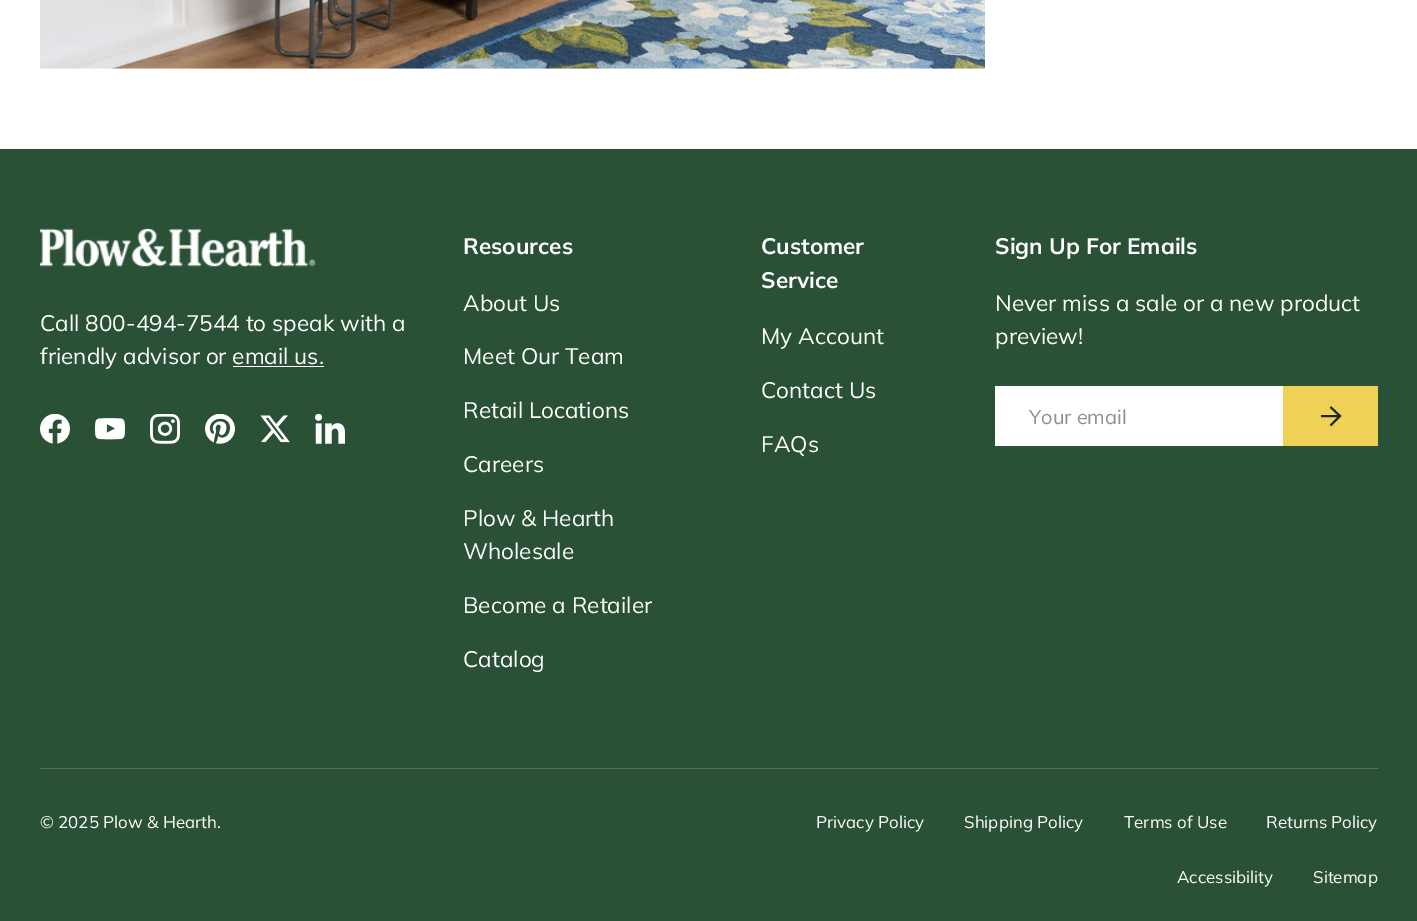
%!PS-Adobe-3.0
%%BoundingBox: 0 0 1417 921
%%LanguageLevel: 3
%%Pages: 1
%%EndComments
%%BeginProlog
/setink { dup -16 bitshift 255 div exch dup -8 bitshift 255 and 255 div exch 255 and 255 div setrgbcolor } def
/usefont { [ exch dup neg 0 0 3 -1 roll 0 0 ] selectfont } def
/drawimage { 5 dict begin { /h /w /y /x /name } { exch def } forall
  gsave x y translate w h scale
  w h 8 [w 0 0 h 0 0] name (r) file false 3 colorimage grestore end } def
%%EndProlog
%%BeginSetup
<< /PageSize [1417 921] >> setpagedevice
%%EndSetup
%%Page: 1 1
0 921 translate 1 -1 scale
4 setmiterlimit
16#FFFFFF setink
0 0 1417 921 rectfill
(img1.raw) 40 0 945 69 drawimage
16#2A5135 setink
0 149 1417 772 rectfill
(img2.raw) 40 228 275 39 drawimage
/Muli-Regular 22.5 usefont
16#FFFFFF setink
40 331 moveto (Call 800-494-7544 to speak with a) show
40 364 moveto (friendly advisor or email us.) show
233 366 91 1 rectfill
(img3.raw) 40 414 30 30 drawimage
(img4.raw) 95 418 30 22 drawimage
(img5.raw) 150 414 30 30 drawimage
(img6.raw) 205 414 30 30 drawimage
(img7.raw) 260 415 30 28 drawimage
(img8.raw) 315 414 30 30 drawimage
/Muli-Bold 22.5 usefont
463 254 moveto (Resources) show
/Muli-Regular 22.5 usefont
[
    [(About Us) 463 311]
    [(Meet Our Team) 463 364]
    [(Retail Locations) 463 418]
    [(Careers) 463 472]
    [(Plow & Hearth) 463 526]
    [(Wholesale) 463 559]
    [(Become a Retailer) 463 613]
    [(Catalog) 463 667]
] { aload pop moveto show } forall
/Muli-Bold 22.5 usefont
761 254 moveto (Customer) show
761 288 moveto (Service) show
/Muli-Regular 22.5 usefont
[
    [(My Account) 761 344]
    [(Contact Us) 761 398]
    [(FAQs) 761 452]
] { aload pop moveto show } forall
/Muli-Bold 22.5 usefont
995 254 moveto (Sign Up For Emails) show
/Muli-Regular 22.5 usefont
995 311 moveto (Never miss a sale or a new product) show
995 344 moveto (preview!) show
995 386 288 60 rectfill
/Muli-Regular 20 usefont
16#919191 setink
1029 424 moveto (Your email) show
16#EFD156 setink
1283 386 95 60 rectfill
16#222222 setink
1.9 setlinewidth
1321 416 moveto 1339 416 lineto 1330.5 407 moveto 1340 416 lineto 1330.5 425.5 lineto stroke
16#55745D setink
40 768 1338 1 rectfill
/Muli-Regular 16.9 usefont
16#FFFFFF setink
[
    [(© 2025 Plow & Hearth.) 40 828]
    [(Privacy Policy) 816 828]
    [(Shipping Policy) 964 828]
    [(Terms of Use) 1124 828]
    [(Returns Policy) 1266 828]
    [(Accessibility) 1177 883]
    [(Sitemap) 1313 883]
] { aload pop moveto show } forall
showpage
%%EOF
